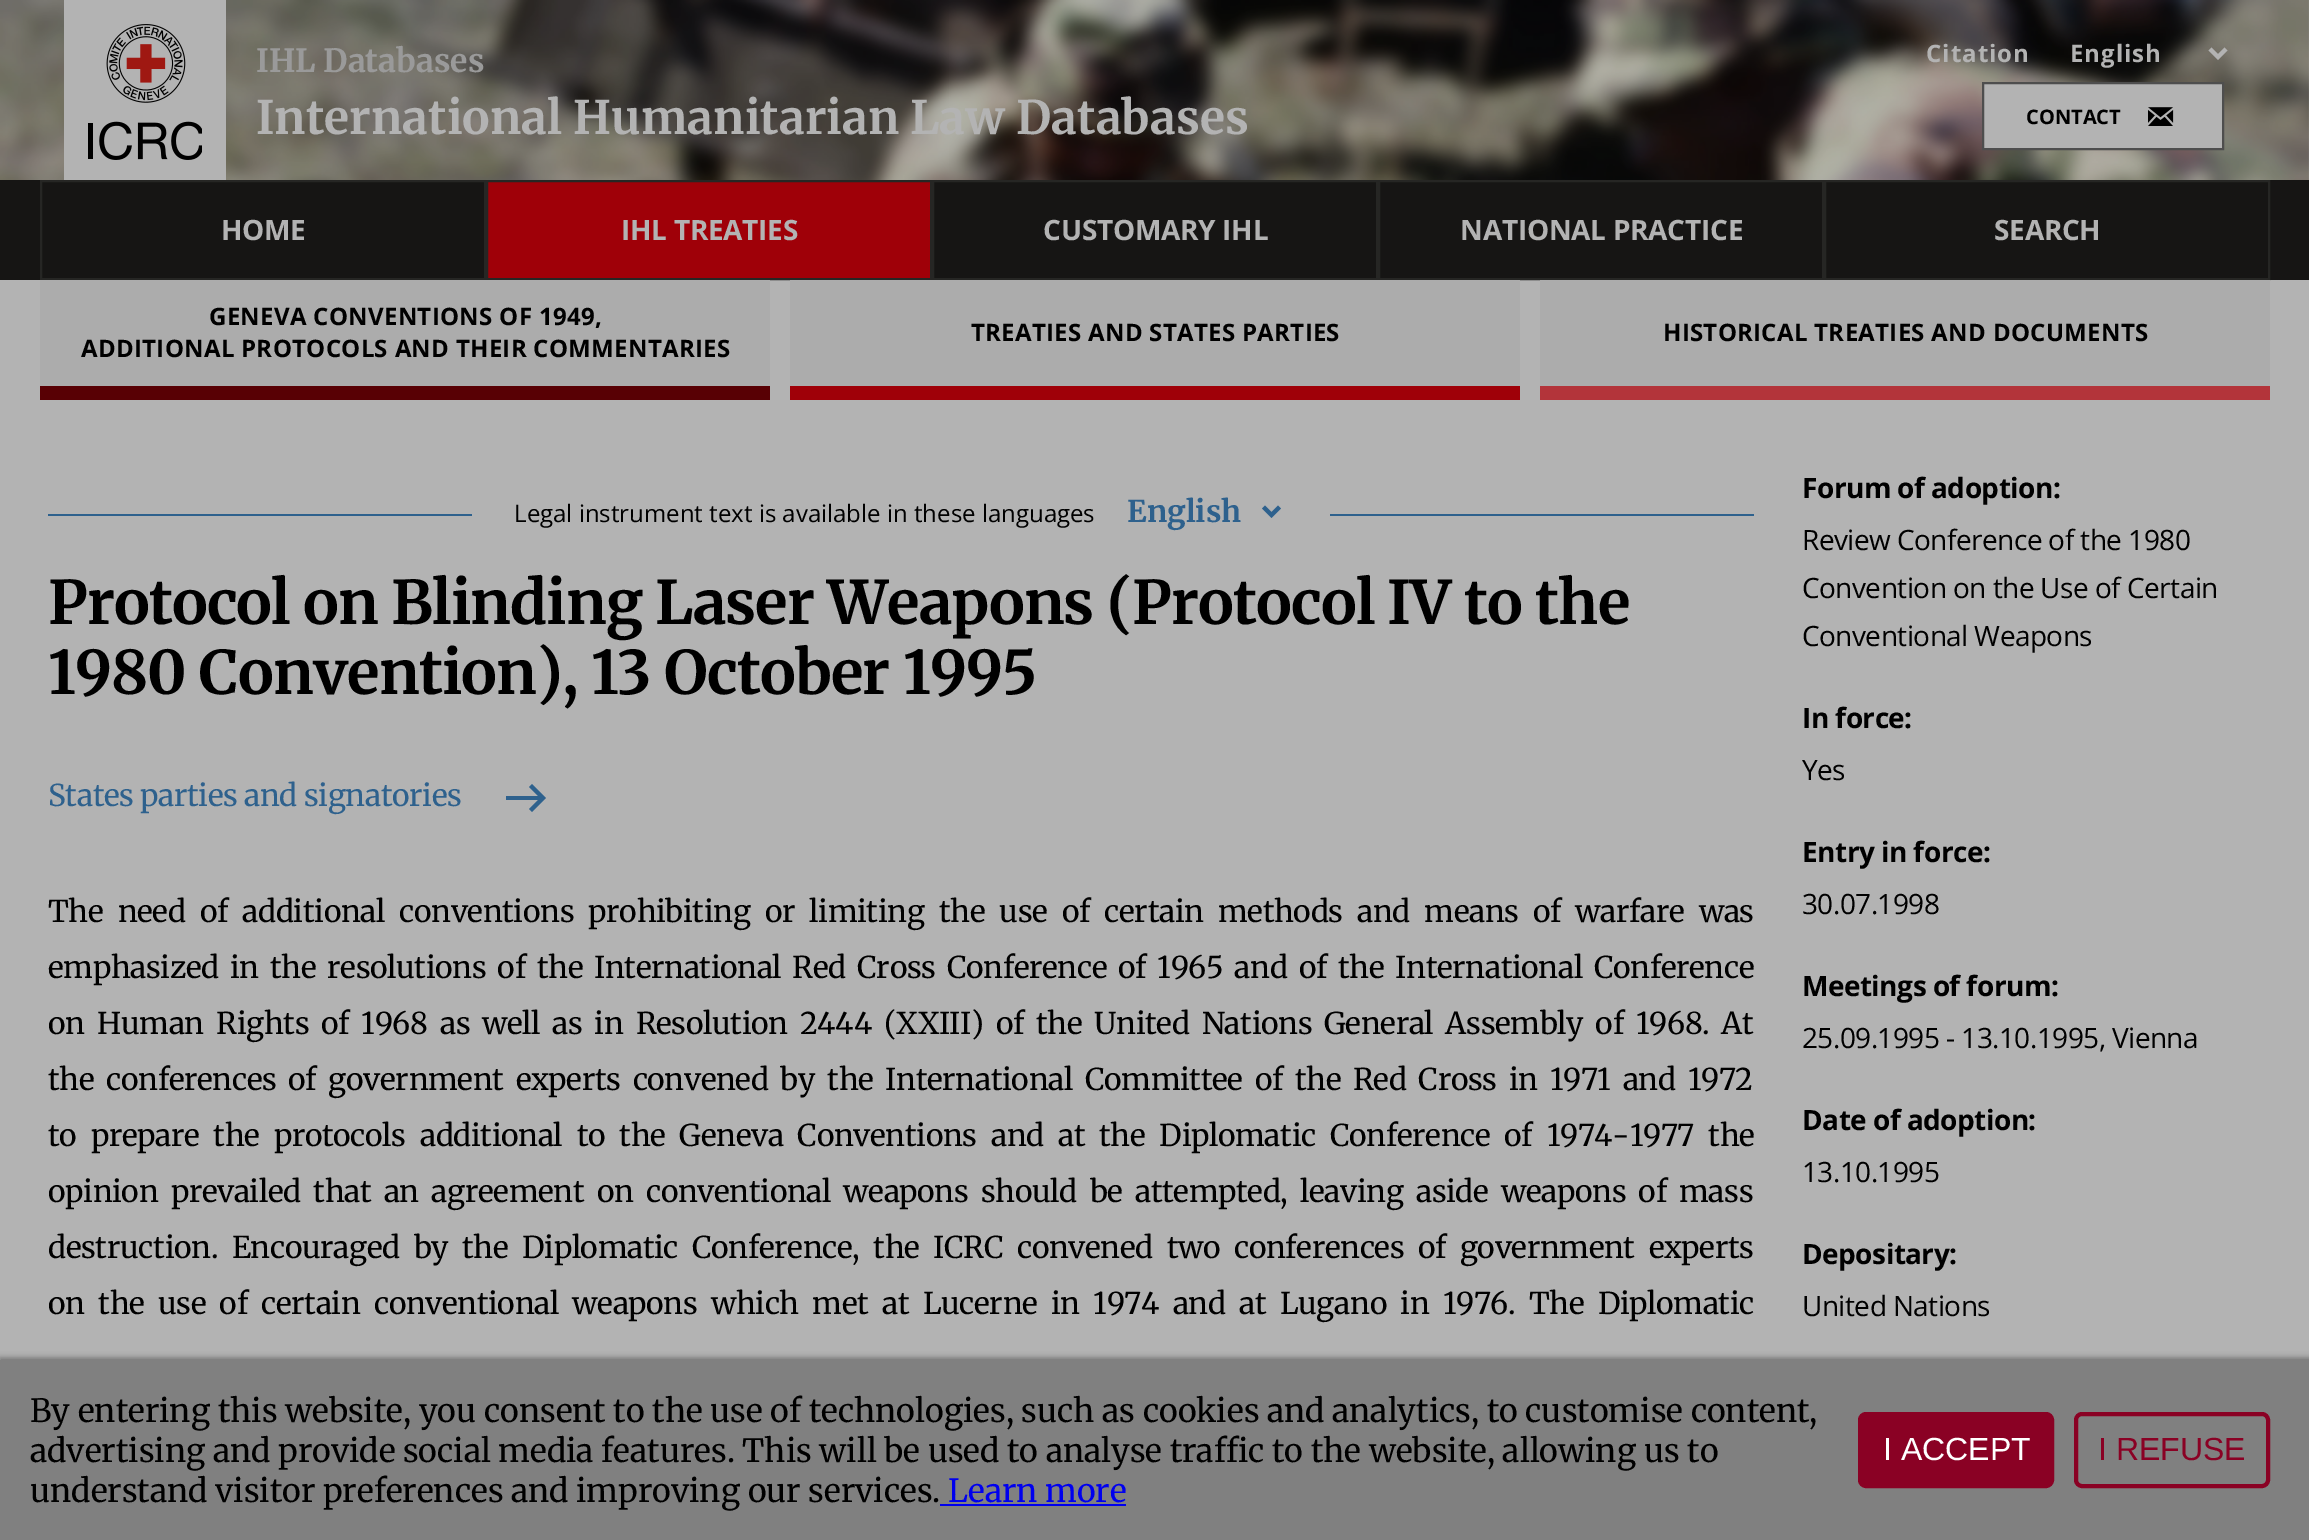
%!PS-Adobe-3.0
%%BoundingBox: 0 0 2309 1540
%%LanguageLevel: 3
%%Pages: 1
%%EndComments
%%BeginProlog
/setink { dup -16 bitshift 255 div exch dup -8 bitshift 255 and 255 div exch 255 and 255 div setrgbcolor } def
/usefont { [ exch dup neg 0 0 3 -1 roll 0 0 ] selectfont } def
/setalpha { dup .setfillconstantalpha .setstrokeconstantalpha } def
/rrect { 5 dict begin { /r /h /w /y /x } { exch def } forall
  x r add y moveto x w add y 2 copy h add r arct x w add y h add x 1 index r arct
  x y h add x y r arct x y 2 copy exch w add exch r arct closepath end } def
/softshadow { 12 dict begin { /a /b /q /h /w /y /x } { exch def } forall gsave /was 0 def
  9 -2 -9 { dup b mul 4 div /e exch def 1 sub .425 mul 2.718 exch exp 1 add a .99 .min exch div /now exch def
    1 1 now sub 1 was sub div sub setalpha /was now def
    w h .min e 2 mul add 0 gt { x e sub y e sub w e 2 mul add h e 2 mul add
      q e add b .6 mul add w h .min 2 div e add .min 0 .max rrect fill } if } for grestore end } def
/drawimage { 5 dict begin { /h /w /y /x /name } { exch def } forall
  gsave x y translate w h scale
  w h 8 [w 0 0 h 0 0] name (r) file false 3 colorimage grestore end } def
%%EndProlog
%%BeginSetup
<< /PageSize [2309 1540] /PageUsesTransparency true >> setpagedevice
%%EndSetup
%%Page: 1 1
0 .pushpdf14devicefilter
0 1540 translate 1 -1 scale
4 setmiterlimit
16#B3B3B3 setink
0 0 2309 1540 rectfill
(img1.raw) 0 0 2309 180 drawimage
64 0 162 180 rectfill
(img2.raw) 88 24 114 136 drawimage
/Merriweather-Bold 32 usefont
16#9A9A9A setink
256 72 moveto (IHL Databases) show
/Merriweather-Bold 46.2 usefont
16#B3B3B3 setink
256 134 moveto (International Humanitarian Law Databases) show
/OpenSans-Bold 24 usefont
1926 62 moveto 1 0 (Citation) ashow
4 setlinewidth
2210 49 moveto 2218 57 lineto 2226 49 lineto stroke
2070 62 moveto 1 0 (English) ashow
1983 83 moveto 2223 83 lineto 2223 149 lineto 1983 149 lineto closepath gsave fill grestore
16#4E4E4E setink
2 setlinewidth
stroke
/OpenSans-Bold 20 usefont
16#000000 setink
2026 124 moveto (CONTACT) show
(img3.raw) 2148 107 26 19 drawimage
16#161514 setink
0 180 2309 100 rectfill
16#262624 setink
41 181 444 98 rectstroke
/OpenSans-Bold 28 usefont
16#B3B3B3 setink
221 240 moveto -0.25 0 (HOME) ashow
16#9F0008 setink
487 181 moveto 931 181 lineto 931 279 lineto 487 279 lineto closepath gsave fill grestore
16#262624 setink
stroke
16#B3B3B3 setink
621 240 moveto -0.25 0 (IHL TREATIES) ashow
16#262624 setink
933 181 444 98 rectstroke
16#B3B3B3 setink
1043 240 moveto -0.25 0 (CUSTOMARY IHL) ashow
16#262624 setink
1379 181 444 98 rectstroke
16#B3B3B3 setink
1460 240 moveto -0.25 0 (NATIONAL PRACTICE) ashow
16#262624 setink
1825 181 444 98 rectstroke
16#B3B3B3 setink
1994 240 moveto -0.25 0 (SEARCH) ashow
16#ACACAC setink
40 280 730 106 rectfill
16#580004 setink
40 386 730 14 rectfill
/OpenSans-Bold 24 usefont
16#000000 setink
209 325 moveto 0.3 0 (GENEVA CONVENTIONS OF 1949,) ashow
81 357 moveto 0.3 0 (ADDITIONAL PROTOCOLS AND THEIR COMMENTARIES) ashow
16#ACACAC setink
790 280 730 106 rectfill
16#9F0008 setink
790 386 730 14 rectfill
16#000000 setink
971 341 moveto 0.3 0 (TREATIES AND STATES PARTIES) ashow
16#ACACAC setink
1540 280 730 106 rectfill
16#B3343A setink
1540 386 730 14 rectfill
16#000000 setink
1663 341 moveto 0.3 0 (HISTORICAL TREATIES AND DOCUMENTS) ashow
16#2E618D setink
48 514 1706 2 rectfill
16#B3B3B3 setink
472 514 858 2 rectfill
/OpenSans-Regular 24 usefont
16#000000 setink
514 522 moveto (Legal instrument text is available in these languages) show
16#2E618D setink
4 setlinewidth
1263.5 507 moveto 1271.5 515 lineto 1279.5 507 lineto stroke
/Merriweather-Bold 30 usefont
1127 522 moveto (English) show
/Merriweather-Bold 60 usefont
16#000000 setink
48 624 moveto -0.92 0 (Protocol on Blinding Laser Weapons \(Protocol IV to the) ashow
48 694 moveto -0.92 0 (1980 Convention\), 13 October 1995) ashow
/Merriweather-Regular 30 usefont
16#2E618D setink
48 806 moveto -0.36 0 (States parties and signatories) ashow
532 784 moveto 529 787 lineto 538 796 lineto 506 796 lineto 506 800 lineto 538 800 lineto 529 809 lineto 532 812 lineto 546 798 lineto closepath fill
16#000000 setink
48 922 moveto 7.6 0 32 -0.36 0 (The need of additional conventions prohibiting or limiting the use of certain methods and means of warfare was) awidthshow
48 978 moveto 4.4 0 32 -0.36 0 (emphasized in the resolutions of the International Red Cross Conference of 1965 and of the International Conference) awidthshow
48 1034 moveto 5.4 0 32 -0.36 0 (on Human Rights of 1968 as well as in Resolution 2444 \(XXIII\) of the United Nations General Assembly of 1968. At) awidthshow
48 1090 moveto 5.25 0 32 -0.36 0 (the conferences of government experts convened by the International Committee of the Red Cross in 1971 and 1972) awidthshow
48 1146 moveto 7.4 0 32 -0.36 0 (to prepare the protocols additional to the Geneva Conventions and at the Diplomatic Conference of 1974-1977 the) awidthshow
48 1202 moveto 5.75 0 32 -0.36 0 (opinion prevailed that an agreement on conventional weapons should be attempted, leaving aside weapons of mass) awidthshow
48 1258 moveto 7 0 32 -0.36 0 (destruction. Encouraged by the Diplomatic Conference, the ICRC convened two conferences of government experts) awidthshow
48 1314 moveto 6.75 0 32 -0.36 0 (on the use of certain conventional weapons which met at Lucerne in 1974 and at Lugano in 1976. The Diplomatic) awidthshow
/OpenSans-Bold 28 usefont
1802 498 moveto -0.55 0 (Forum of adoption:) ashow
/OpenSans-Regular 28 usefont
1802 550 moveto -0.55 0 (Review Conference of the 1980) ashow
1802 598 moveto -0.55 0 (Convention on the Use of Certain) ashow
1802 646 moveto -0.55 0 (Conventional Weapons) ashow
/OpenSans-Bold 28 usefont
1802 728 moveto -0.55 0 (In force:) ashow
/OpenSans-Regular 28 usefont
1802 780 moveto -0.55 0 (Yes) ashow
/OpenSans-Bold 28 usefont
1802 862 moveto -0.55 0 (Entry in force:) ashow
/OpenSans-Regular 28 usefont
1802 914 moveto -0.55 0 (30.07.1998) ashow
/OpenSans-Bold 28 usefont
1802 996 moveto -0.55 0 (Meetings of forum:) ashow
/OpenSans-Regular 28 usefont
1802 1048 moveto -0.55 0 (25.09.1995 - 13.10.1995, Vienna) ashow
/OpenSans-Bold 28 usefont
1802 1130 moveto -0.55 0 (Date of adoption:) ashow
/OpenSans-Regular 28 usefont
1802 1182 moveto -0.55 0 (13.10.1995) ashow
/OpenSans-Bold 28 usefont
1802 1264 moveto -0.55 0 (Depositary:) ashow
/OpenSans-Regular 28 usefont
1802 1316 moveto -0.55 0 (United Nations) ashow
16#6B6B6B setink
0 1358 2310 180 0 3 1 softshadow
16#808080 setink
0 1360 2309 180 rectfill
/Merriweather-Regular 32 usefont
16#000000 setink
[
    [(By entering this website, you consent to the use of technologies, such as cookies and analytics, to customise content,) 30 1422]
    [(advertising and provide social media features. This will be used to analyse traffic to the website, allowing us to) 30 1462]
    [(understand visitor preferences and improving our services.) 30 1502]
] { aload pop moveto show } forall
16#0000EE setink
948 1502 moveto (Learn more) show
940 1504 186 2 rectfill
16#8A0124 setink
1860 1414 192 72 6 rrect gsave fill grestore
stroke
/LiberationSans-Regular 32 usefont
16#FFFFFF setink
1883 1460 moveto (I ACCEPT) show
16#8A0124 setink
2076 1414 192 72 6 rrect stroke
2098 1460 moveto (I REFUSE) show
.poppdf14devicefilter showpage
%%EOF
